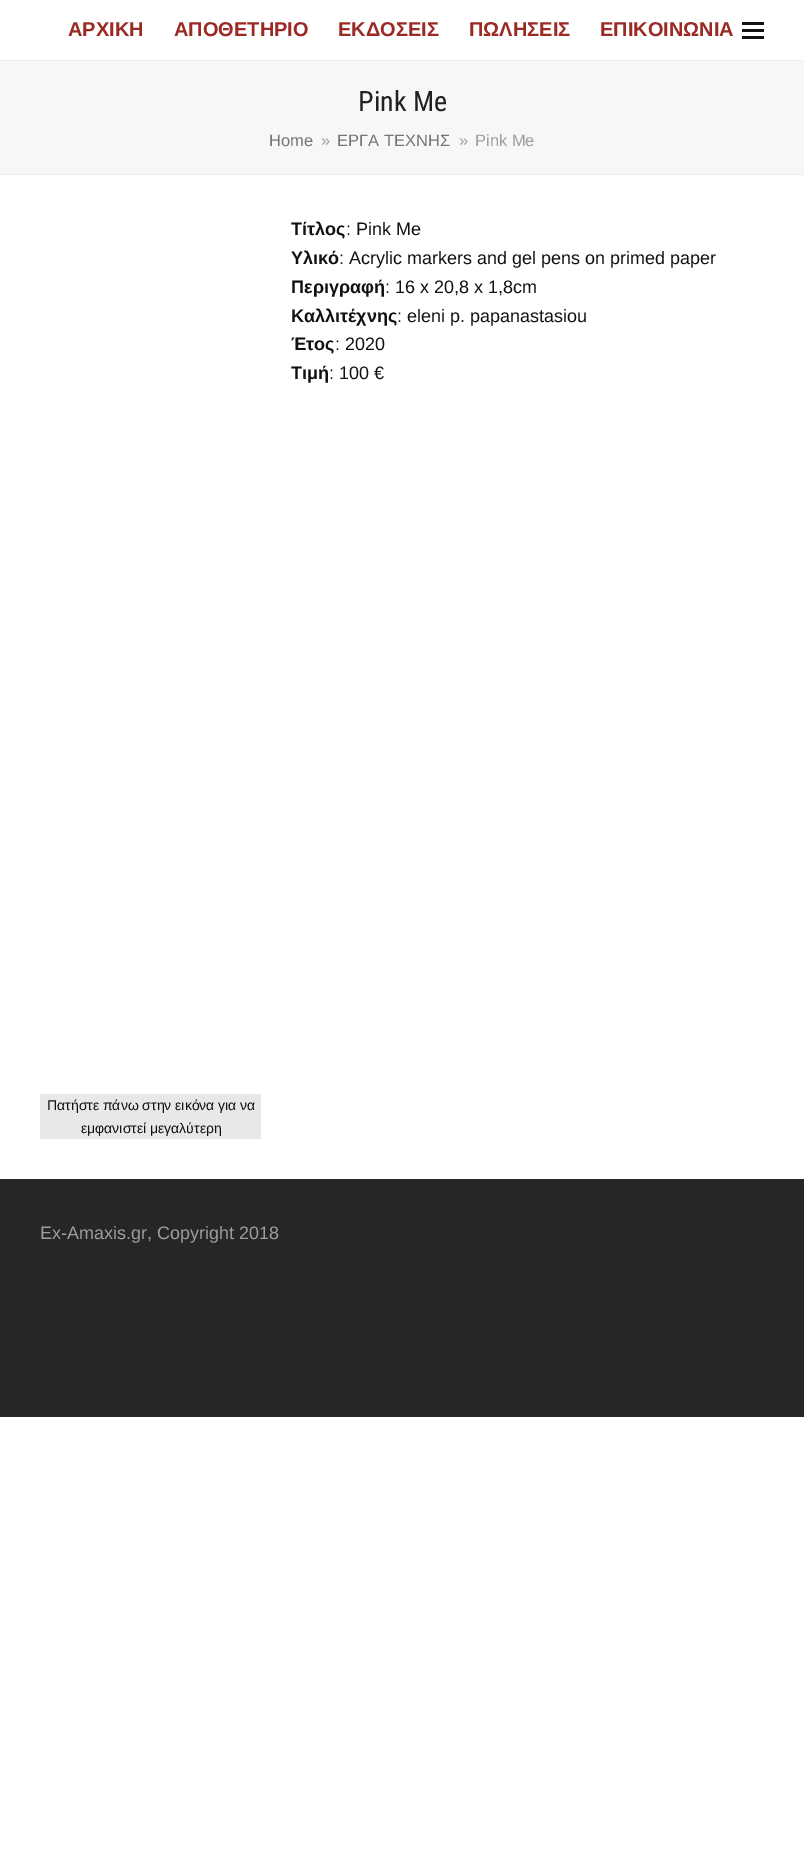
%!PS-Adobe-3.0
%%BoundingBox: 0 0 804 1849
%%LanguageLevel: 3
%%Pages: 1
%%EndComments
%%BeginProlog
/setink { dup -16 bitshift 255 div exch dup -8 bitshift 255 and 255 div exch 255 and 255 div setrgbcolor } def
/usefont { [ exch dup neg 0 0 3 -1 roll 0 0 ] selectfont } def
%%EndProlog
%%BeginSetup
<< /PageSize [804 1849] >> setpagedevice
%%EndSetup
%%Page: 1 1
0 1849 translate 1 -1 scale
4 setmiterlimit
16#FFFFFF setink
0 0 804 1849 rectfill
/LiberationSans-Bold 20 usefont
16#9B2A24 setink
[
    [(ΑΡΧΙΚΗ) 68 36]
    [(ΑΠΟΘΕΤΗΡΙΟ) 174 36]
    [(ΕΚΔΟΣΕΙΣ) 338 36]
    [(ΠΩΛΗΣΕΙΣ) 469 36]
    [(ΕΠΙΚΟΙΝΩΝΙΑ) 600 36]
] { aload pop moveto show } forall
[
    [742 29 22 3 16#111111]
    [742 22 22 3 16#111111]
    [742 36 22 3 16#111111]
    [0 61 804 113 16#F7F7F7]
    [0 60 804 1 16#EEEEEE]
    [0 174 804 1 16#EEEEEE]
] { aload pop setink rectfill } forall
/RobotoCondensed-Regular 28 usefont
16#222222 setink
358 111 moveto (Pink Μe) show
/LiberationSans-Regular 16.5 usefont
16#757575 setink
269 146 moveto (Home) show
16#9E9E9E setink
321 146 moveto (») show
16#757575 setink
337 146 moveto (ΕΡΓΑ ΤΕΧΝΗΣ) show
16#9E9E9E setink
459 146 moveto (») show
475 146 moveto (Pink Μe) show
/LiberationSans-Bold 18 usefont
16#111111 setink
291 235 moveto (Τίτλος) show
/LiberationSans-Regular 18 usefont
346 235 moveto (: Pink Μe) show
/LiberationSans-Bold 18 usefont
291 264 moveto (Υλικό) show
/LiberationSans-Regular 18 usefont
339 264 moveto (: Acrylic markers and gel pens on primed paper) show
/LiberationSans-Bold 18 usefont
291 293 moveto (Περιγραφή) show
/LiberationSans-Regular 18 usefont
385 293 moveto (: 16 x 20,8 x 1,8cm) show
/LiberationSans-Bold 18 usefont
291 322 moveto (Καλλιτέχνης) show
/LiberationSans-Regular 18 usefont
397 322 moveto (: eleni p. papanastasiou) show
/LiberationSans-Bold 18 usefont
291 350 moveto (Έτος) show
/LiberationSans-Regular 18 usefont
335 350 moveto (: 2020) show
/LiberationSans-Bold 18 usefont
291 379 moveto (Τιμή) show
/LiberationSans-Regular 18 usefont
329 379 moveto (: 100 €) show
16#E8E8E8 setink
40 1094 221 45 rectfill
/LiberationSans-Regular 14 usefont
16#111111 setink
47 1110 moveto (Πατήστε πάνω στην εικόνα για να) show
81 1133 moveto (εμφανιστεί μεγαλύτερη) show
16#262626 setink
0 1179 804 238 rectfill
/LiberationSans-Regular 18 usefont
16#9E9E9E setink
40 1239 moveto (Ex-Amaxis.gr, Copyright 2018) show
showpage
%%EOF
